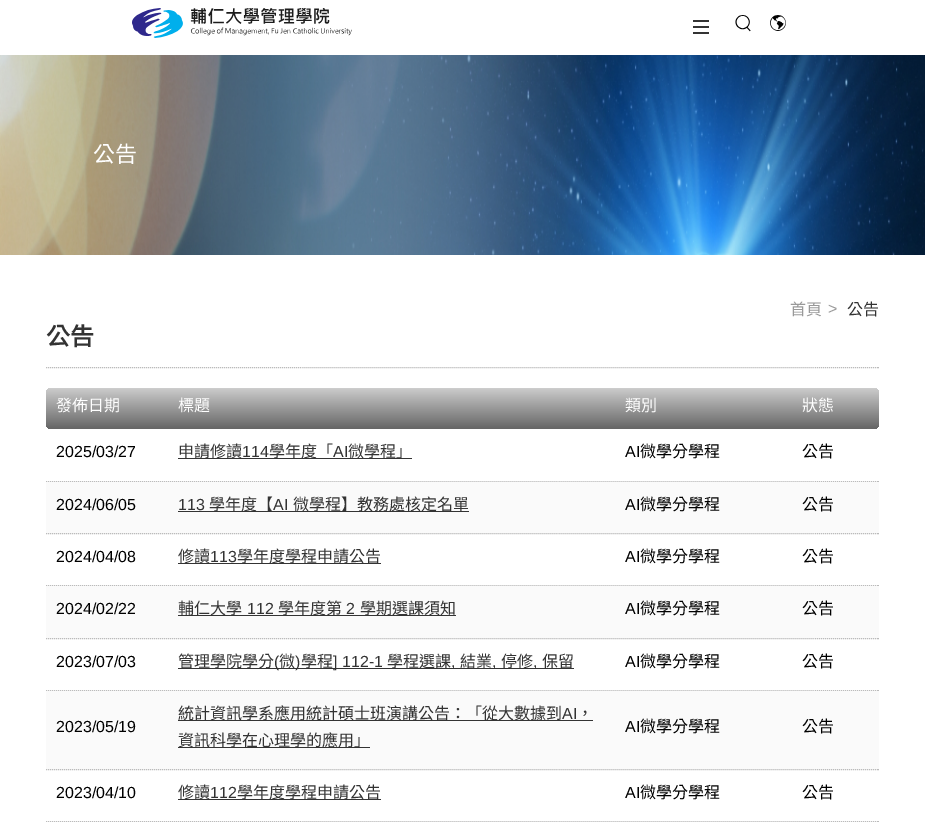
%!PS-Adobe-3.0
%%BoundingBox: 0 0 925 822
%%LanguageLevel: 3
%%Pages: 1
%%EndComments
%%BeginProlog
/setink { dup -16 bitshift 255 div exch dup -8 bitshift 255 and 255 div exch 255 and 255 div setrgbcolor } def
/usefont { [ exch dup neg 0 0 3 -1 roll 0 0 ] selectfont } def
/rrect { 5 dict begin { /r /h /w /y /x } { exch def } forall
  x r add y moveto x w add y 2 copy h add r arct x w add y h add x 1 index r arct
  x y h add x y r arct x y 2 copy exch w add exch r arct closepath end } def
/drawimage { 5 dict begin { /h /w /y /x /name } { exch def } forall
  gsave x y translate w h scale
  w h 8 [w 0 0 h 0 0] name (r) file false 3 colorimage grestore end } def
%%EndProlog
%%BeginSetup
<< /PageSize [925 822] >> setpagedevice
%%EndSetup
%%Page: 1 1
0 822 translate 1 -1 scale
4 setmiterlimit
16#FFFFFF setink
0 0 925 822 rectfill
(img1.raw) 132 8 220 30 drawimage
[
    [693 20 16 2 16#333333]
    [693 26 16 2 16#333333]
    [693 32 16 2 16#333333]
] { aload pop setink rectfill } forall
(img2.raw) 735 15 16 17 drawimage
(img3.raw) 770 15 16 16 drawimage
(img4.raw) 0 55 925 200 drawimage
/NotoSansCJKTC-Regular 22 usefont
16#FFFFFF setink
93 162 moveto (公告) show
/NotoSansCJKTC-Regular 16 usefont
16#999999 setink
790 315 moveto (首頁) show
/LiberationSans-Regular 16 usefont
828 314 moveto (>) show
/NotoSansCJKTC-Regular 16 usefont
16#333333 setink
847 315 moveto (公告) show
16#BBBBBB setink
[1 1] 0 setdash
46 367.5 moveto 879 367.5 lineto stroke
/NotoSansCJKTC-Bold 24 usefont
16#333333 setink
46 345 moveto (公告) show
gsave 46 388 833 41 5 rrect clip newpath
<< /ShadingType 2 /ColorSpace /DeviceRGB /Coords [463 429 463 388] /Extend [true true] /Function << /FunctionType 3 /Domain [0 1] /Functions [<< /FunctionType 2 /Domain [0 1] /C0 [0.4 0.4 0.4] /C1 [0.4 0.4 0.4] /N 1 >> << /FunctionType 2 /Domain [0 1] /C0 [0.4 0.4 0.4] /C1 [0.8 0.8 0.8] /N 1 >>] /Bounds [0.01] /Encode [0 1 0 1] >> >> shfill grestore
/NotoSansCJKTC-Regular 16 usefont
16#FFFFFF setink
[
    [(發佈日期) 56 411]
    [(標題) 178 411]
    [(類別) 625 411]
    [(狀態) 802 411]
] { aload pop moveto show } forall
16#BBBBBB setink
46 481.5 moveto 879 481.5 lineto stroke
/LiberationSans-Regular 16 usefont
16#000000 setink
56 457 moveto (2025/03/27) show
16#333333 setink
178 458 234 1 rectfill
/NotoSansCJKTC-Regular 16 usefont
178 457 moveto (申請修讀) show
/LiberationSans-Regular 16 usefont
242 457 moveto (114) show
/NotoSansCJKTC-Regular 16 usefont
269 457 moveto (學年度「) show
/LiberationSans-Regular 16 usefont
333 457 moveto (AI) show
/NotoSansCJKTC-Regular 16 usefont
348 457 moveto (微學程」) show
/LiberationSans-Regular 16 usefont
16#000000 setink
625 457 moveto (AI) show
/NotoSansCJKTC-Regular 16 usefont
640 457 moveto (微學分學程) show
802 457 moveto (公告) show
16#FAFAFA setink
46 482 833 52 rectfill
16#BBBBBB setink
46 533.5 moveto 879 533.5 lineto stroke
/LiberationSans-Regular 16 usefont
16#000000 setink
56 510 moveto (2024/06/05) show
16#333333 setink
178 510 moveto (113) show
178 511 291 1 rectfill
/NotoSansCJKTC-Regular 16 usefont
209 510 moveto (學年度【) show
/LiberationSans-Regular 16 usefont
273 510 moveto (AI) show
/NotoSansCJKTC-Regular 16 usefont
293 510 moveto (微學程】教務處核定名單) show
/LiberationSans-Regular 16 usefont
16#000000 setink
625 510 moveto (AI) show
/NotoSansCJKTC-Regular 16 usefont
640 510 moveto (微學分學程) show
802 510 moveto (公告) show
16#BBBBBB setink
46 585.5 moveto 879 585.5 lineto stroke
/LiberationSans-Regular 16 usefont
16#000000 setink
56 562 moveto (2024/04/08) show
16#333333 setink
178 563 203 1 rectfill
/NotoSansCJKTC-Regular 16 usefont
178 562 moveto (修讀) show
/LiberationSans-Regular 16 usefont
210 562 moveto (113) show
/NotoSansCJKTC-Regular 16 usefont
237 562 moveto (學年度學程申請公告) show
/LiberationSans-Regular 16 usefont
16#000000 setink
625 562 moveto (AI) show
/NotoSansCJKTC-Regular 16 usefont
640 562 moveto (微學分學程) show
802 562 moveto (公告) show
16#FAFAFA setink
46 586 833 53 rectfill
16#BBBBBB setink
46 638.5 moveto 879 638.5 lineto stroke
/LiberationSans-Regular 16 usefont
16#000000 setink
56 614 moveto (2024/02/22) show
16#333333 setink
178 615 278 1 rectfill
/NotoSansCJKTC-Regular 16 usefont
178 614 moveto (輔仁大學) show
/LiberationSans-Regular 16 usefont
247 614 moveto (112) show
/NotoSansCJKTC-Regular 16 usefont
278 614 moveto (學年度第) show
/LiberationSans-Regular 16 usefont
346 614 moveto (2) show
/NotoSansCJKTC-Regular 16 usefont
360 614 moveto (學期選課須知) show
/LiberationSans-Regular 16 usefont
16#000000 setink
625 614 moveto (AI) show
/NotoSansCJKTC-Regular 16 usefont
640 614 moveto (微學分學程) show
802 614 moveto (公告) show
16#BBBBBB setink
46 690.5 moveto 879 690.5 lineto stroke
/LiberationSans-Regular 16 usefont
16#000000 setink
56 667 moveto (2023/07/03) show
16#333333 setink
178 668 396 1 rectfill
/NotoSansCJKTC-Regular 16 usefont
178 667 moveto (管理學院學分) show
/LiberationSans-Regular 16 usefont
274 667 moveto (\() show
/NotoSansCJKTC-Regular 16 usefont
279 667 moveto (微) show
/LiberationSans-Regular 16 usefont
295 667 moveto (\)) show
/NotoSansCJKTC-Regular 16 usefont
301 667 moveto (學程) show
/LiberationSans-Regular 16 usefont
333 667 moveto (] 112-1) show
/NotoSansCJKTC-Regular 16 usefont
387 667 moveto (學程選課) show
/LiberationSans-Regular 16 usefont
451 667 moveto (,) show
/NotoSansCJKTC-Regular 16 usefont
460 667 moveto (結業) show
/LiberationSans-Regular 16 usefont
492 667 moveto (,) show
/NotoSansCJKTC-Regular 16 usefont
501 667 moveto (停修) show
/LiberationSans-Regular 16 usefont
533 667 moveto (,) show
/NotoSansCJKTC-Regular 16 usefont
542 667 moveto (保留) show
/LiberationSans-Regular 16 usefont
16#000000 setink
625 667 moveto (AI) show
/NotoSansCJKTC-Regular 16 usefont
640 667 moveto (微學分學程) show
802 667 moveto (公告) show
16#FAFAFA setink
46 691 833 79 rectfill
16#BBBBBB setink
46 769.5 moveto 879 769.5 lineto stroke
/LiberationSans-Regular 16 usefont
16#000000 setink
56 732 moveto (2023/05/19) show
16#333333 setink
178 720 415 1 rectfill
/NotoSansCJKTC-Regular 16 usefont
178 719 moveto (統計資訊學系應用統計碩士班演講公告：「從大數據到) show
/LiberationSans-Regular 16 usefont
562 719 moveto (AI) show
/NotoSansCJKTC-Regular 16 usefont
577 719 moveto (，) show
178 747 192 1 rectfill
178 746 moveto (資訊科學在心理學的應用」) show
/LiberationSans-Regular 16 usefont
16#000000 setink
625 732 moveto (AI) show
/NotoSansCJKTC-Regular 16 usefont
640 732 moveto (微學分學程) show
802 732 moveto (公告) show
16#BBBBBB setink
46 821.5 moveto 879 821.5 lineto stroke
/LiberationSans-Regular 16 usefont
16#000000 setink
56 798 moveto (2023/04/10) show
16#333333 setink
178 799 203 1 rectfill
/NotoSansCJKTC-Regular 16 usefont
178 798 moveto (修讀) show
/LiberationSans-Regular 16 usefont
210 798 moveto (112) show
/NotoSansCJKTC-Regular 16 usefont
237 798 moveto (學年度學程申請公告) show
/LiberationSans-Regular 16 usefont
16#000000 setink
625 798 moveto (AI) show
/NotoSansCJKTC-Regular 16 usefont
640 798 moveto (微學分學程) show
802 798 moveto (公告) show
showpage
%%EOF
